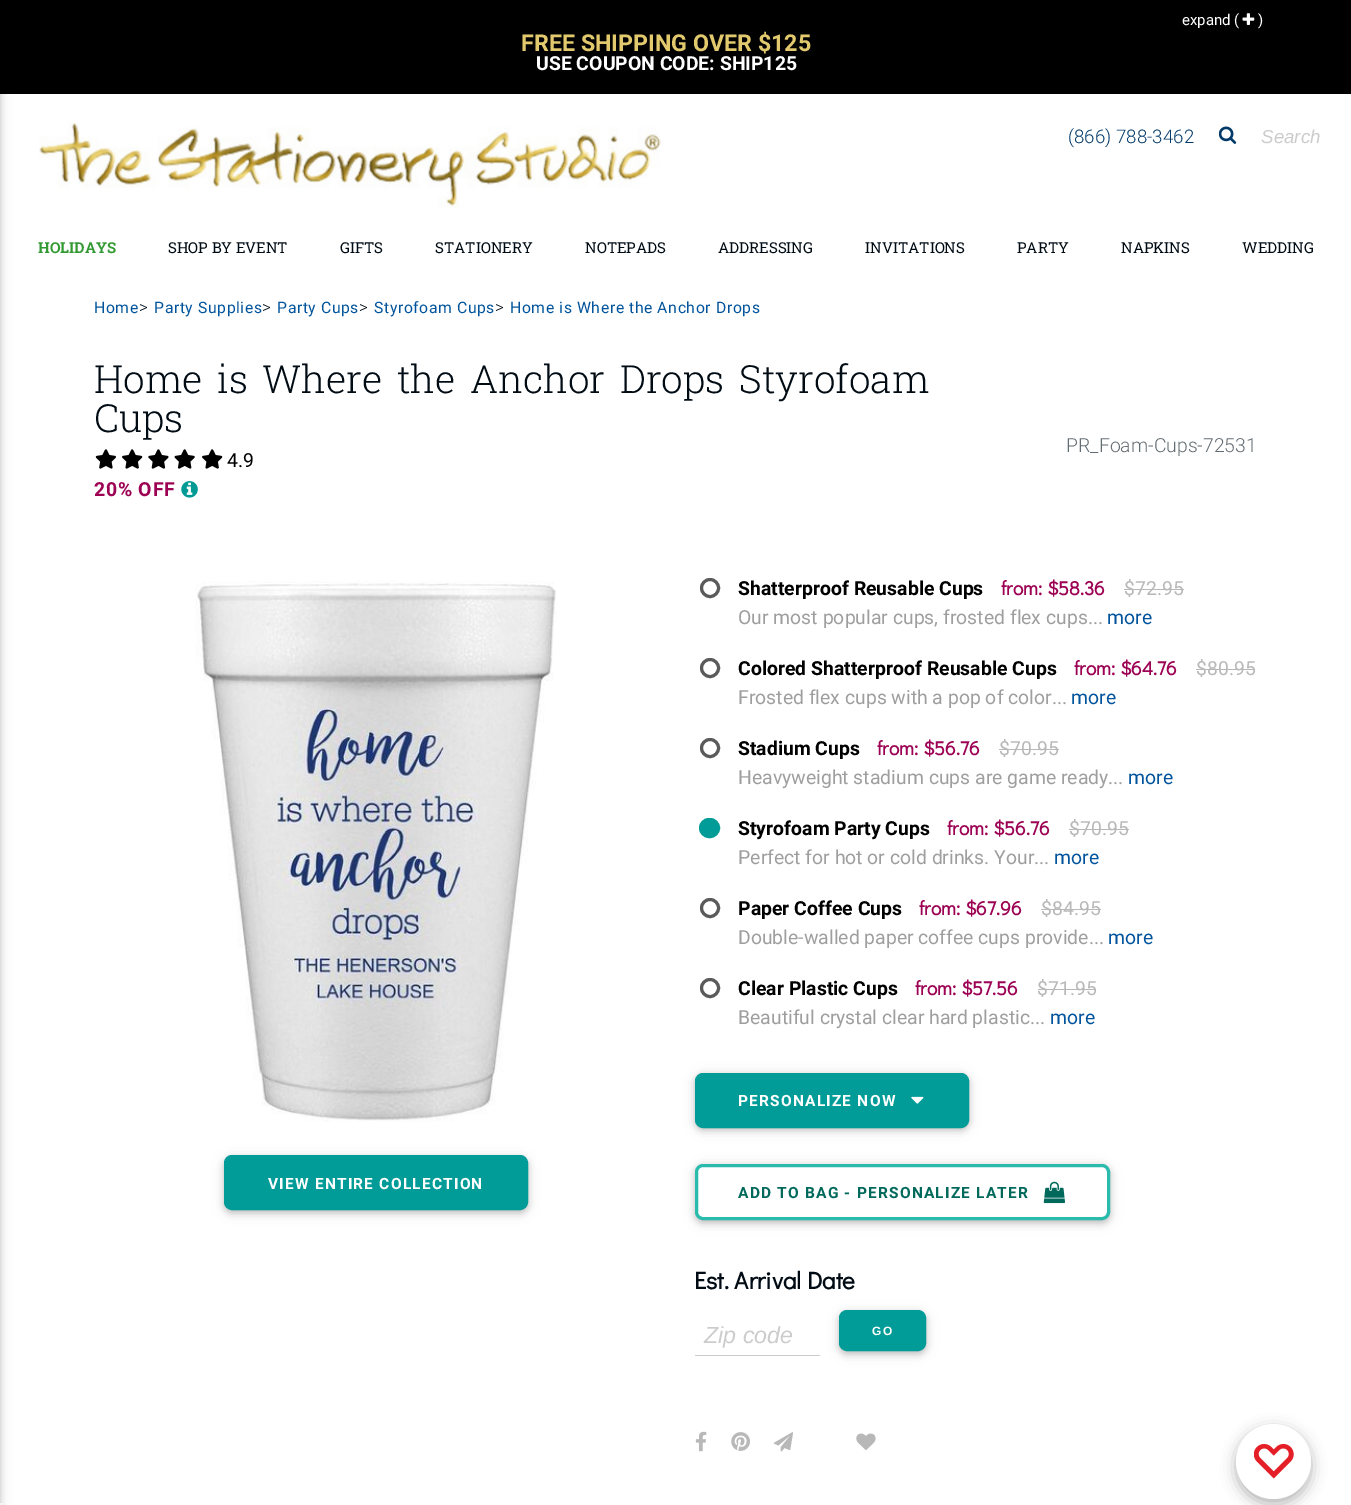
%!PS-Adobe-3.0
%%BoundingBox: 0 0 1351 1505
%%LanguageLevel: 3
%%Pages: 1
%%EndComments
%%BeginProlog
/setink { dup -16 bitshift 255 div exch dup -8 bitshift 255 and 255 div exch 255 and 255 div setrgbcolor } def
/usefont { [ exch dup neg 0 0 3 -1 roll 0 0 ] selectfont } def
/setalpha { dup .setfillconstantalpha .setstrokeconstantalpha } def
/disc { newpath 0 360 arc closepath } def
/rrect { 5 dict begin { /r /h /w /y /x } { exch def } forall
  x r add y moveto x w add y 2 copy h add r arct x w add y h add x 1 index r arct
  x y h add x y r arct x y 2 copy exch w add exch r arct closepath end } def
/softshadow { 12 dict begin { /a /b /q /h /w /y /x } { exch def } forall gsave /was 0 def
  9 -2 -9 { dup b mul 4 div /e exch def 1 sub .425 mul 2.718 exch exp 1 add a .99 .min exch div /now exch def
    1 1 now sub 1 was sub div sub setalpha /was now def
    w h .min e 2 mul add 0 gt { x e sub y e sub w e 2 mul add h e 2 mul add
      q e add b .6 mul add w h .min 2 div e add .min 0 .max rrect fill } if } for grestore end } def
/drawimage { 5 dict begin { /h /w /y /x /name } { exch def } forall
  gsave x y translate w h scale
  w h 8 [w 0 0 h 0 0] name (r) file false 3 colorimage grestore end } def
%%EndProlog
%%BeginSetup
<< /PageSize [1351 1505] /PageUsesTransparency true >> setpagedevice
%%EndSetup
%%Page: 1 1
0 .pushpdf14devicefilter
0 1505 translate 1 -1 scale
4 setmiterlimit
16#FFFFFF setink
0 0 1351 1505 rectfill
16#000000 setink
0 0 1351 94 rectfill
-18 3 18 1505 0 6 0.12 softshadow
-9 3 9 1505 0 3 0.16 softshadow
/Roboto-Regular 15 usefont
16#FFFFFF setink
1182 25 moveto (expand \() show
(img1.raw) 1242 13 13 12 drawimage
1258 25 moveto (\)) show
/Roboto-Bold 23.25 usefont
16#E3C96D setink
521 51 moveto (FREE SHIPPING OVER $125) show
/Roboto-Bold 19.4 usefont
16#FFFFFF setink
536 70 moveto (USE COUPON CODE: SHIP125) show
(img2.raw) 39 121 622 87 drawimage
/Roboto-Light 18.75 usefont
16#013969 setink
1068 143 moveto (\(866\) 788-3462) show
(img3.raw) 1219 126 18 18 drawimage
/LiberationSans-Italic 18.75 usefont
16#CCCCCC setink
1261 143 moveto (Search) show
/RobotoSlab-Bold 15 usefont
16#339933 setink
38 253 moveto (HOLIDAYS) show
/RobotoSlab-Regular 15 usefont
16#000B14 setink
[
    [(SHOP BY EVENT) 168 253]
    [(GIFTS) 340 253]
    [(STATIONERY) 435 253]
    [(NOTEPADS) 585 253]
    [(ADDRESSING) 718 253]
    [(INVITATIONS) 865 253]
    [(PARTY) 1017 253]
    [(NAPKINS) 1121 253]
    [(WEDDING) 1242 253]
] { aload pop moveto show } forall
/Roboto-Regular 15.75 usefont
16#01549C setink
94 313 moveto 0.6 0 (Home) ashow
/Roboto-Light 17 usefont
16#000B14 setink
139 313 moveto 1 0 (>) ashow
/Roboto-Regular 15.75 usefont
16#01549C setink
154 313 moveto 0.6 0 (Party Supplies) ashow
/Roboto-Light 17 usefont
16#000B14 setink
262 313 moveto 1 0 (>) ashow
/Roboto-Regular 15.75 usefont
16#01549C setink
277 313 moveto 0.6 0 (Party Cups) ashow
/Roboto-Light 17 usefont
16#000B14 setink
359 313 moveto 1 0 (>) ashow
/Roboto-Regular 15.75 usefont
16#01549C setink
374 313 moveto 0.6 0 (Styrofoam Cups) ashow
/Roboto-Light 17 usefont
16#000B14 setink
495 313 moveto 1 0 (>) ashow
/Roboto-Regular 15.75 usefont
16#01549C setink
510 313 moveto 0.6 0 (Home is Where the Anchor Drops) ashow
/RobotoSlab-Light 38.75 usefont
16#000B14 setink
94 393 moveto 5 0 32 (Home is Where the Anchor Drops Styrofoam) widthshow
94 432 moveto (Cups) show
(img4.raw) 95 449 21 20 drawimage
(img5.raw) 122 449 21 20 drawimage
(img6.raw) 148 449 21 20 drawimage
(img7.raw) 174 449 21 20 drawimage
(img5.raw) 202 449 21 20 drawimage
/Roboto-Regular 19.4 usefont
16#000000 setink
227 467 moveto (4.9) show
/Roboto-Bold 19.4 usefont
16#9C0154 setink
94 496 moveto 0.75 0 (20% OFF) ashow
(img8.raw) 181 481 17 17 drawimage
/Roboto-Light 19.4 usefont
16#636C72 setink
1066 452 moveto (PR_Foam-Cups-72531) show
(img9.raw) 195 581 362 541 drawimage
16#000000 setink
224 1158 304 55 8 6 0.12 softshadow
224 1158 304 55 8 3 0.16 softshadow
16#019C97 setink
225.5 1156.5 301 52 6.5 rrect gsave fill grestore
3 setlinewidth
stroke
/Roboto-Bold 15.5 usefont
16#FFFFFF setink
268 1189 moveto 1.2 0 (VIEW ENTIRE COLLECTION) ashow
16#5A5A5A setink
710 588 8.5 disc stroke
/Roboto-Bold 19.4 usefont
16#000000 setink
738 595 moveto (Shatterproof Reusable Cups) show
/DidactGothic-Bold 19.4 usefont
16#9C0154 setink
1001 595 moveto (from: $58.36) show
/Roboto-Regular 19.4 usefont
16#B8B8B8 setink
1124 595 moveto ($72.95) show
1124 589 60 1 rectfill
16#9E9E9E setink
738 624 moveto (Our most popular cups, frosted flex cups...) show
16#01549C setink
1107 624 moveto (more) show
16#5A5A5A setink
710 668 8.5 disc stroke
/Roboto-Bold 19.4 usefont
16#000000 setink
738 675 moveto (Colored Shatterproof Reusable Cups) show
/DidactGothic-Bold 19.4 usefont
16#9C0154 setink
1074 675 moveto (from: $64.76) show
/Roboto-Regular 19.4 usefont
16#B8B8B8 setink
1196 675 moveto ($80.95) show
1196 669 59 1 rectfill
16#9E9E9E setink
738 704 moveto (Frosted flex cups with a pop of color...) show
16#01549C setink
1071 704 moveto (more) show
16#5A5A5A setink
710 748 8.5 disc stroke
/Roboto-Bold 19.4 usefont
16#000000 setink
738 755 moveto (Stadium Cups) show
/DidactGothic-Bold 19.4 usefont
16#9C0154 setink
877 755 moveto (from: $56.76) show
/Roboto-Regular 19.4 usefont
16#B8B8B8 setink
999 755 moveto ($70.95) show
999 749 60 1 rectfill
16#9E9E9E setink
738 784 moveto (Heavyweight stadium cups are game ready...) show
16#01549C setink
1128 784 moveto (more) show
16#019C97 setink
700.5 819.5 18 17 8.5 rrect gsave fill grestore
stroke
/Roboto-Bold 19.4 usefont
16#000000 setink
738 835 moveto (Styrofoam Party Cups) show
/DidactGothic-Bold 19.4 usefont
16#9C0154 setink
947 835 moveto (from: $56.76) show
/Roboto-Regular 19.4 usefont
16#B8B8B8 setink
1069 835 moveto ($70.95) show
1069 829 60 1 rectfill
16#9E9E9E setink
738 864 moveto (Perfect for hot or cold drinks. Your...) show
16#01549C setink
1054 864 moveto (more) show
16#5A5A5A setink
710 908 8.5 disc stroke
/Roboto-Bold 19.4 usefont
16#000000 setink
738 915 moveto (Paper Coffee Cups) show
/DidactGothic-Bold 19.4 usefont
16#9C0154 setink
919 915 moveto (from: $67.96) show
/Roboto-Regular 19.4 usefont
16#B8B8B8 setink
1041 915 moveto ($84.95) show
1041 909 60 1 rectfill
16#9E9E9E setink
738 944 moveto (Double-walled paper coffee cups provide...) show
16#01549C setink
1108 944 moveto (more) show
16#5A5A5A setink
710 988 8.5 disc stroke
/Roboto-Bold 19.4 usefont
16#000000 setink
738 995 moveto (Clear Plastic Cups) show
/DidactGothic-Bold 19.4 usefont
16#9C0154 setink
915 995 moveto (from: $57.56) show
/Roboto-Regular 19.4 usefont
16#B8B8B8 setink
1037 995 moveto ($71.95) show
1038 989 58 1 rectfill
16#9E9E9E setink
738 1024 moveto (Beautiful crystal clear hard plastic...) show
16#01549C setink
1050 1024 moveto (more) show
16#000000 setink
695 1075 274 55 8 6 0.12 softshadow
695 1075 274 55 8 3 0.16 softshadow
16#019C97 setink
696.5 1074.5 271 52 6.5 rrect gsave fill grestore
stroke
/Roboto-Bold 15.5 usefont
16#FFFFFF setink
738 1106 moveto 1.2 0 (PERSONALIZE NOW) ashow
(img10.raw) 911 1096 13 8 drawimage
gsave
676 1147 moveto 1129 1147 lineto 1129 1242 lineto 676 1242 lineto closepath 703 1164 moveto 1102 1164 lineto 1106.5 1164 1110 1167.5 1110 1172 curveto 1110 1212 lineto 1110 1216.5 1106.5 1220 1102 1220 curveto 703 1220 lineto 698.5 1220 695 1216.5 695 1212 curveto 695 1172 lineto 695 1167.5 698.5 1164 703 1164 curveto closepath eoclip newpath
16#000000 setink
695 1166 415 57 8 6 0.12 softshadow
grestore
gsave
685 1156 moveto 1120 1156 lineto 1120 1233 lineto 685 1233 lineto closepath 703 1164 moveto 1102 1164 lineto 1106.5 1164 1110 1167.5 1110 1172 curveto 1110 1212 lineto 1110 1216.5 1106.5 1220 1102 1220 curveto 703 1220 lineto 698.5 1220 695 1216.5 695 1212 curveto 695 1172 lineto 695 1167.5 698.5 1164 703 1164 curveto closepath eoclip newpath
16#000000 setink
695 1166 415 57 8 3 0.16 softshadow
grestore
16#2BBBAD setink
696.5 1165.5 412 53 6.5 rrect stroke
16#00695C setink
738 1198 moveto 1.2 0 (ADD TO BAG - PERSONALIZE LATER) ashow
(img11.raw) 1043 1181 22 23 drawimage
/DidactGothic-Bold 24.25 usefont
16#000B14 setink
694 1289 moveto (Est. Arrival Date) show
16#CCCCCC setink
695 1355 125 1 rectfill
/LiberationSans-Italic 23.25 usefont
704 1343 moveto (Zip code) show
16#000000 setink
839 1313 87 41 8 6 0.12 softshadow
839 1313 87 41 8 3 0.16 softshadow
16#019C97 setink
840.5 1311.5 84 38 6.5 rrect gsave fill grestore
stroke
/LiberationSans-Bold 12 usefont
16#FFFFFF setink
872 1335 moveto 1.2 0 (GO) ashow
(img12.raw) 695 1431 12 21 drawimage
(img13.raw) 731 1432 19 19 drawimage
(img14.raw) 773 1432 20 20 drawimage
(img15.raw) 856 1433 20 17 drawimage
16#F5F5F5 setink
0 1503 3 2 rectfill
16#000000 setink
1236 1429 75 75 37.5 7.5 0.3 softshadow
16#FFFFFF setink
1273.5 1461.5 37.5 disc fill
(img16.raw) 1254 1444 40 35 drawimage
.poppdf14devicefilter showpage
%%EOF
